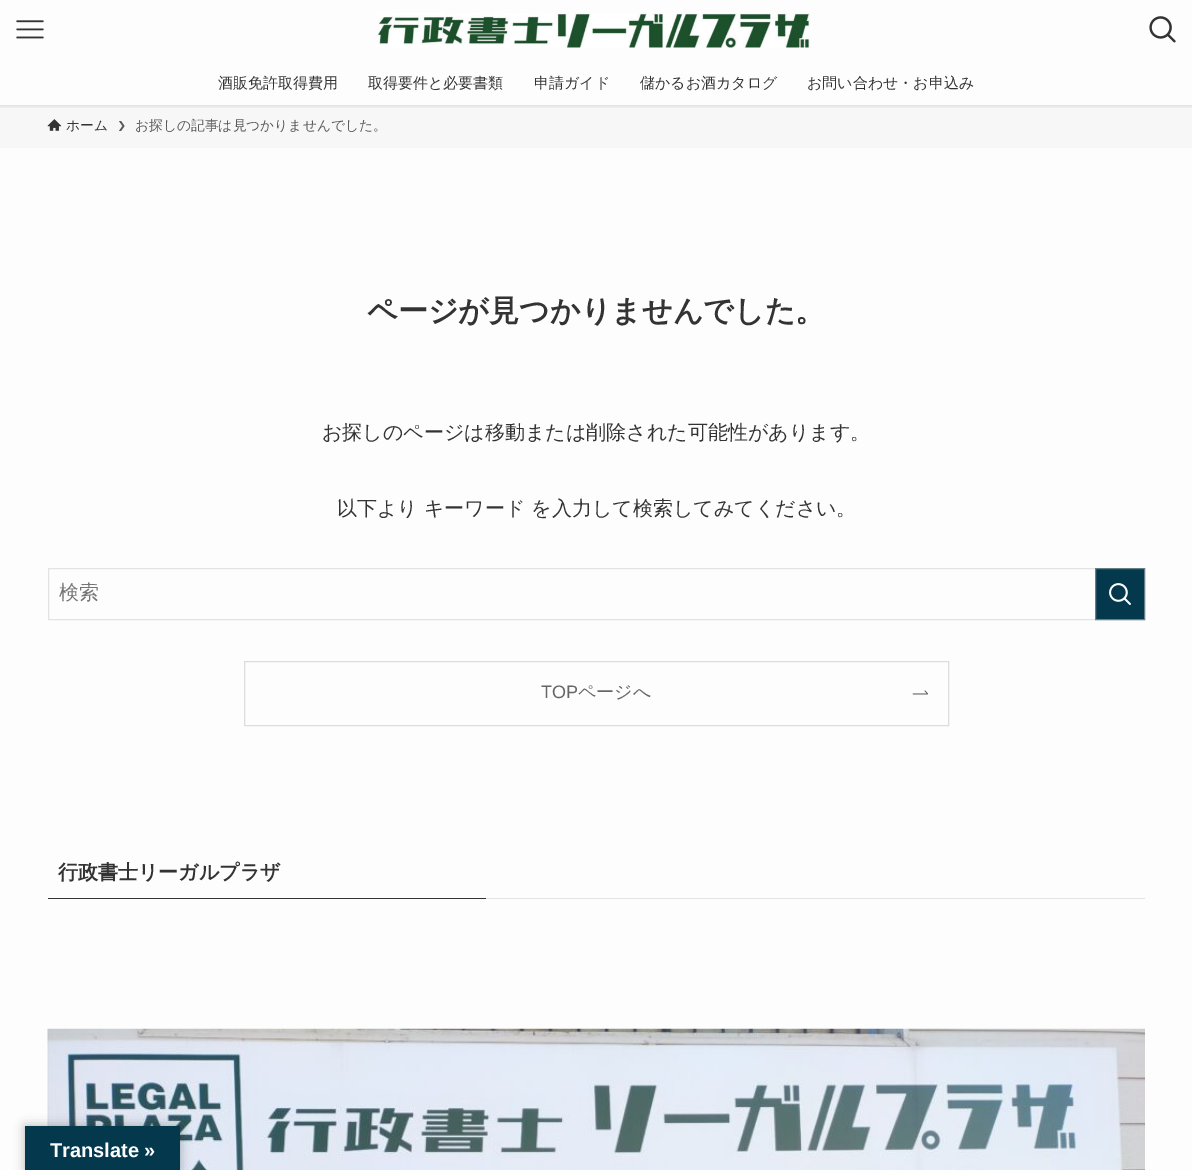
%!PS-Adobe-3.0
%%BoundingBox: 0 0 1192 1170
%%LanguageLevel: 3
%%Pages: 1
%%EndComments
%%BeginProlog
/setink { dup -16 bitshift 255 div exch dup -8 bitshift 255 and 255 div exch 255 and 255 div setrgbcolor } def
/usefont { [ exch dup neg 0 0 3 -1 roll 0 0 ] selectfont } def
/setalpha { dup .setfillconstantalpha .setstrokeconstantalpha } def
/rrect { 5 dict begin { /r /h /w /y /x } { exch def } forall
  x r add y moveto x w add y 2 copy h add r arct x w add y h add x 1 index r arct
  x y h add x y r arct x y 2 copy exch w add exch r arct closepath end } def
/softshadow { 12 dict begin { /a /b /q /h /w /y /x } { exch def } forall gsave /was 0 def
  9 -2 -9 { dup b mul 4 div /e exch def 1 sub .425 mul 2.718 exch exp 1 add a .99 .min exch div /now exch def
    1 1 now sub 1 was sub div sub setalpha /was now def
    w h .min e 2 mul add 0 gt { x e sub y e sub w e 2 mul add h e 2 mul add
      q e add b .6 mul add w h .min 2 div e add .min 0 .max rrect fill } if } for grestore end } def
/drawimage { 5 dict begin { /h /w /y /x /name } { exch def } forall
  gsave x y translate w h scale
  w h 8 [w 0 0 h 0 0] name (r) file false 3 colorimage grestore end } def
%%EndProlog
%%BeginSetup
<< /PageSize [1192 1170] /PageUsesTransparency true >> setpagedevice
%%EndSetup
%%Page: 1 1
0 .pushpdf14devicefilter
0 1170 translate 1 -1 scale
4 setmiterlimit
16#FDFDFD setink
0 0 1192 1170 rectfill
16#F7F7F7 setink
0 105 1192 43 rectfill
gsave
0 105 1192 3 rectclip
16#000000 setink
0 1 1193 105 0 2.5 0.12 softshadow
grestore
(img1.raw) 16 20 28 19 drawimage
(img2.raw) 376 13 435 35 drawimage
(img3.raw) 1149 16 27 27 drawimage
/WenQuanYiZenHei-Medium 15 usefont
16#333333 setink
[
    [(酒販免許取得費用) 218 88]
    [(取得要件と必要書類) 368 88]
    [(申請ガイド) 534 88]
    [(儲かるお酒カタログ) 640 88]
    [(お問い合わせ・お申込み) 807 88]
] { aload pop moveto show } forall
(img4.raw) 47 119 15 12 drawimage
/WenQuanYiZenHei-Medium 13.75 usefont
66 130 moveto (ホーム) show
16#5A5A5A setink
121 121 moveto 119 121 lineto 122.5 126 lineto 119 131 lineto 121 131 lineto 124.5 126 lineto closepath fill
135 130 moveto (お探しの記事は見つかりませんでした。) show
/WenQuanYiZenHei-Bold 30 usefont
16#333333 setink
367 321 moveto (ページが見つかりませんでした。) show
/WenQuanYiZenHei-Medium 20 usefont
322 439 moveto (お探しのページは移動または削除された可能性があります。) show
337 515 moveto (以下より キーワード を入力して検索してみてください。) show
16#E3E3E3 setink
48.5 568.5 1096 51 rectstroke
16#757575 setink
59 599 moveto (検索) show
16#04384C setink
1095.5 568.5 moveto 1144.5 568.5 lineto 1144.5 619.5 lineto 1095.5 619.5 lineto closepath gsave fill grestore
16#66808A setink
stroke
(img5.raw) 1109 583 22 22 drawimage
16#DCDCDC setink
244.5 661.5 704 64 rectstroke
/LiberationSans-Regular 18 usefont
16#666666 setink
541 698 moveto (TOP) show
/WenQuanYiZenHei-Medium 18 usefont
578 698 moveto (ページへ) show
(img6.raw) 912 690 17 5 drawimage
/WenQuanYiZenHei-Bold 20 usefont
16#333333 setink
58 879 moveto (行政書士リーガルプラザ) show
48 898 438 1 rectfill
16#E2E2E2 setink
486 898 659 1 rectfill
(img7.raw) 47 1028 1098 142 drawimage
16#000000 setink
25 1126 155 44 0 5.5 0.3 softshadow
16#04384C setink
25 1126 155 44 rectfill
/LiberationSans-Bold 20 usefont
16#FFFFFF setink
50 1157 moveto (Translate ») show
.poppdf14devicefilter showpage
%%EOF
